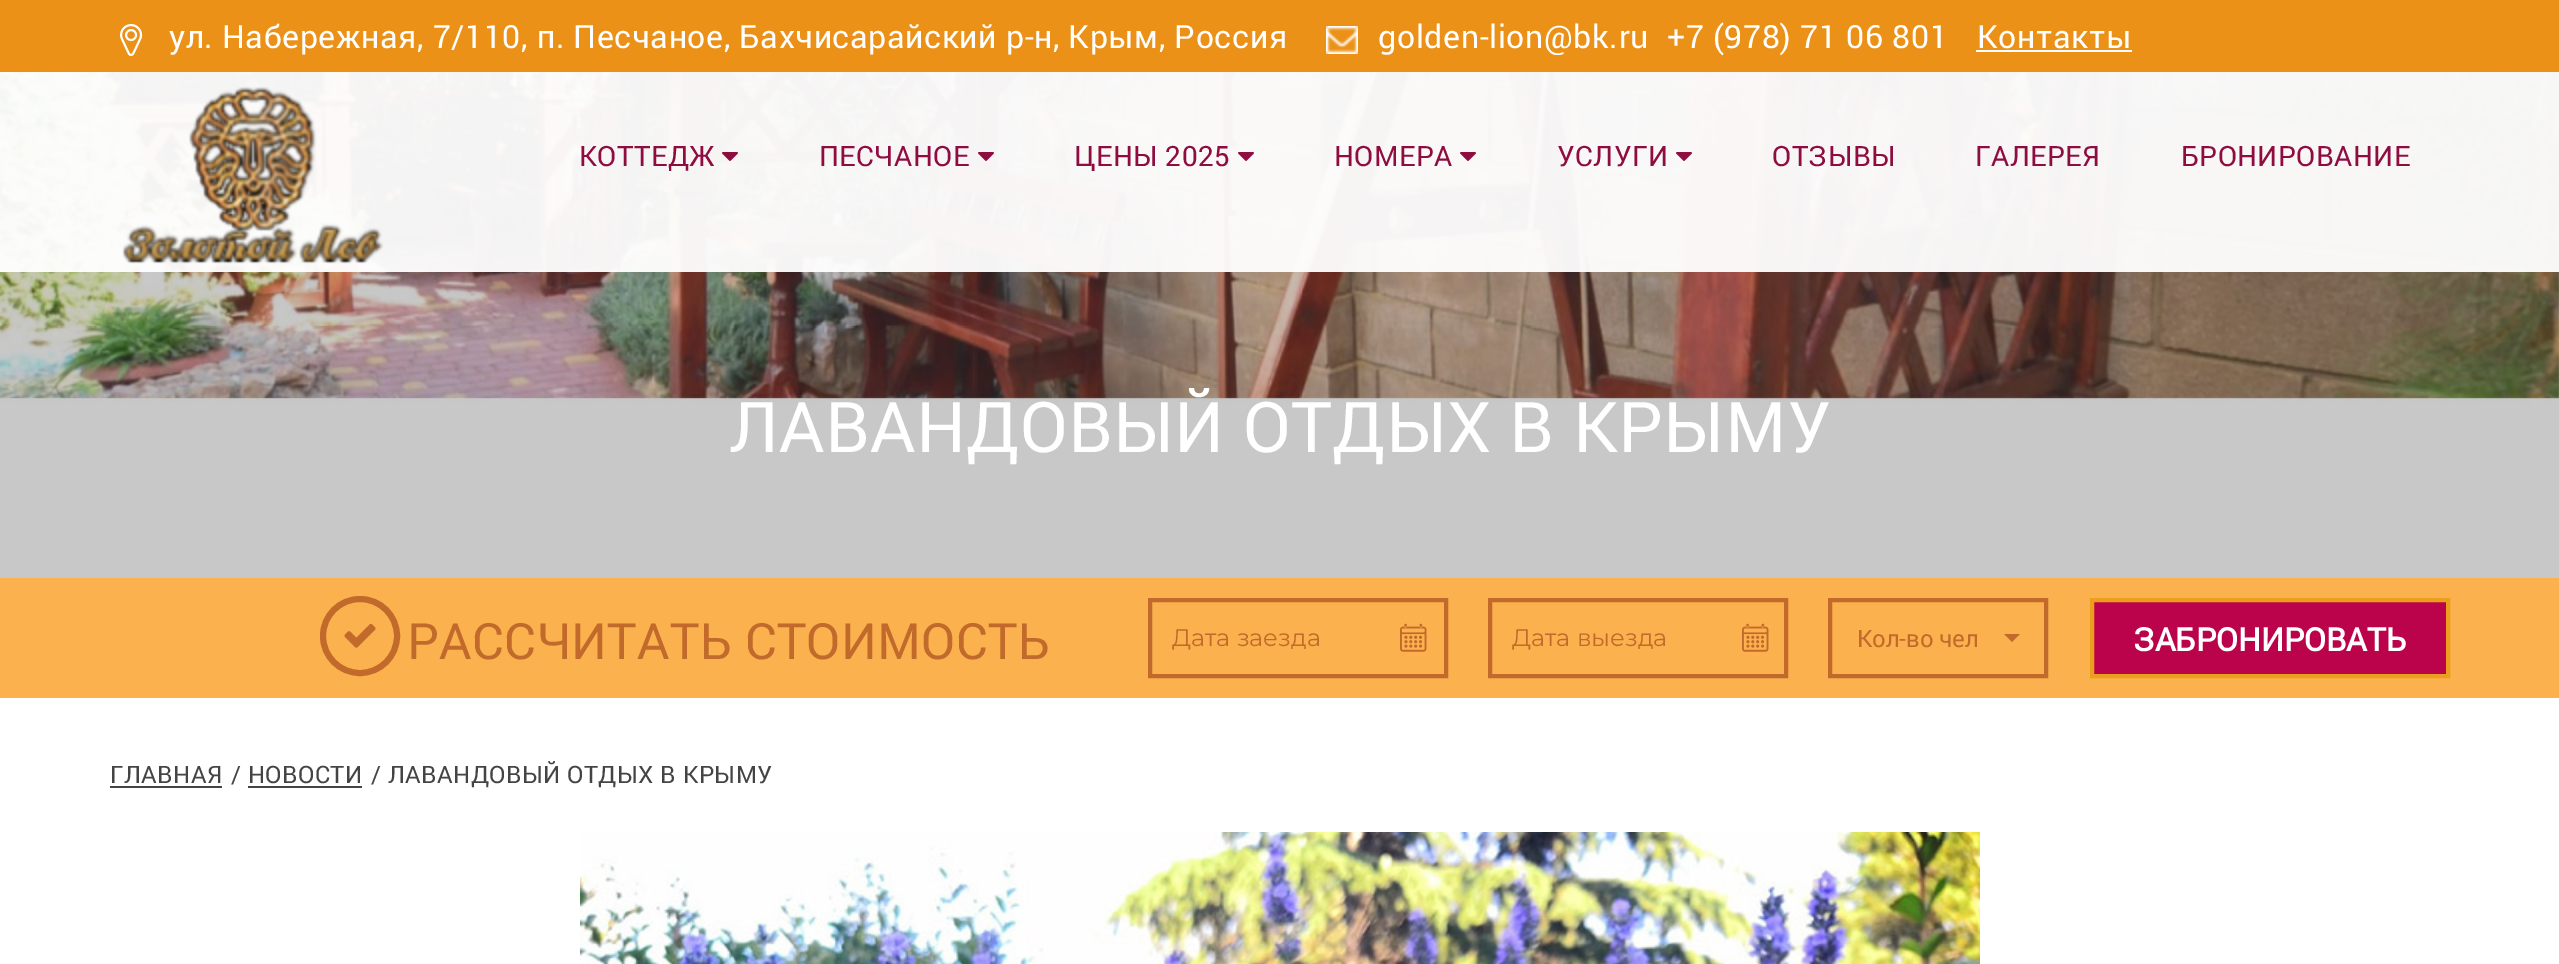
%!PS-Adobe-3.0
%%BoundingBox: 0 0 2559 964
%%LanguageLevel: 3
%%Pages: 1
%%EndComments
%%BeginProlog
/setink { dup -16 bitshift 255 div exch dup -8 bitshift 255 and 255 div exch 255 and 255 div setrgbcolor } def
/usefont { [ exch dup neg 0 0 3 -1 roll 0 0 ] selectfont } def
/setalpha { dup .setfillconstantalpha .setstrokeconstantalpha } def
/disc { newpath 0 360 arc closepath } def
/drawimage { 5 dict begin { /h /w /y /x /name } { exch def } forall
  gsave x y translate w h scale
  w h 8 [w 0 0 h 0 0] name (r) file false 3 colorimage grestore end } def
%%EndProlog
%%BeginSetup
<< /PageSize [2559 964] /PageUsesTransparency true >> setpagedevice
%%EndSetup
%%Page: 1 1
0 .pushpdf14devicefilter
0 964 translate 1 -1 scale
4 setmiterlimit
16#FFFFFF setink
0 0 2559 964 rectfill
16#EB9117 setink
0 0 2559 72 rectfill
(img1.raw) 120 24 23 32 drawimage
/Roboto-Regular 32 usefont
16#FFFFFF setink
169 48 moveto 0.65 0 (ул. Набережная, 7/110, п. Песчаное, Бахчисарайский р-н, Крым, Россия) ashow
(img2.raw) 1326 26 32 28 drawimage
1378 48 moveto 0.65 0 (golden-lion@bk.ru) ashow
1667 48 moveto 0.65 0 (+7 \(978\) 71 06 801) ashow
1977 48 moveto 0.65 0 (Контакты) ashow
1976 50 156 2 rectfill
(img9.raw) 0 72 2559 506 drawimage
0.95 setalpha
0 72 2559 200 rectfill
1 setalpha
(img3.raw) 122 87 262 177 drawimage
/Roboto-Regular 28 usefont
16#8F0C40 setink
579 166 moveto 0.45 0 (КОТТЕДЖ) ashow
(img4.raw) 722 152 16 9 drawimage
819 166 moveto 0.45 0 (ПЕСЧАНОЕ) ashow
(img5.raw) 978 152 16 9 drawimage
1074 166 moveto 0.45 0 (ЦЕНЫ 2025) ashow
(img6.raw) 1238 152 16 9 drawimage
1334 166 moveto 0.45 0 (НОМЕРА) ashow
(img7.raw) 1460 152 16 9 drawimage
1557 166 moveto 0.45 0 (УСЛУГИ) ashow
(img8.raw) 1676 152 16 9 drawimage
1772 166 moveto 0.45 0 (ОТЗЫВЫ) ashow
1975 166 moveto 0.45 0 (ГАЛЕРЕЯ) ashow
2181 166 moveto 0.45 0 (БРОНИРОВАНИЕ) ashow
/Roboto-Regular 70 usefont
16#FFFFFF setink
729 452 moveto 0.45 0 (ЛАВАНДОВЫЙ ОТДЫХ В КРЫМУ) ashow
16#FBB14D setink
0 578 2559 120 rectfill
16#C16A2B setink
6 setlinewidth
360 636 37 disc stroke
(img10.raw) 344 623 32 25 drawimage
/Roboto-Regular 50 usefont
407 659 moveto 0.45 0 (РАССЧИТАТЬ СТОИМОСТЬ) ashow
4 setlinewidth
1150 600 296 76 rectstroke
/Montserrat-Regular 24 usefont
1172 646 moveto (Дата заезда) show
(img11.raw) 1400 623 27 29 drawimage
1490 600 296 76 rectstroke
1512 646 moveto (Дата выезда) show
(img11.raw) 1742 623 27 29 drawimage
1830 600 216 76 rectstroke
/Roboto-Regular 24 usefont
1857 647 moveto (Кол-во чел) show
2004 634 moveto 2020 634 lineto 2012 642 lineto closepath fill
16#BA034B setink
2092 600 moveto 2448 600 lineto 2448 676 lineto 2092 676 lineto closepath gsave fill grestore
16#EB9F1C setink
stroke
/Roboto-Bold 32 usefont
16#FFFFFF setink
2133 651 moveto (ЗАБРОНИРОВАТЬ) show
/Roboto-Regular 24 usefont
16#444444 setink
110 783 moveto 0.45 0 (ГЛАВНАЯ) ashow
110 786 112 2 rectfill
231 783 moveto 0.45 0 (/ НОВОСТИ) ashow
248 786 114 2 rectfill
371 783 moveto 0.45 0 (/ ЛАВАНДОВЫЙ ОТДЫХ В КРЫМУ) ashow
(img12.raw) 580 832 1400 132 drawimage
.poppdf14devicefilter showpage
%%EOF
